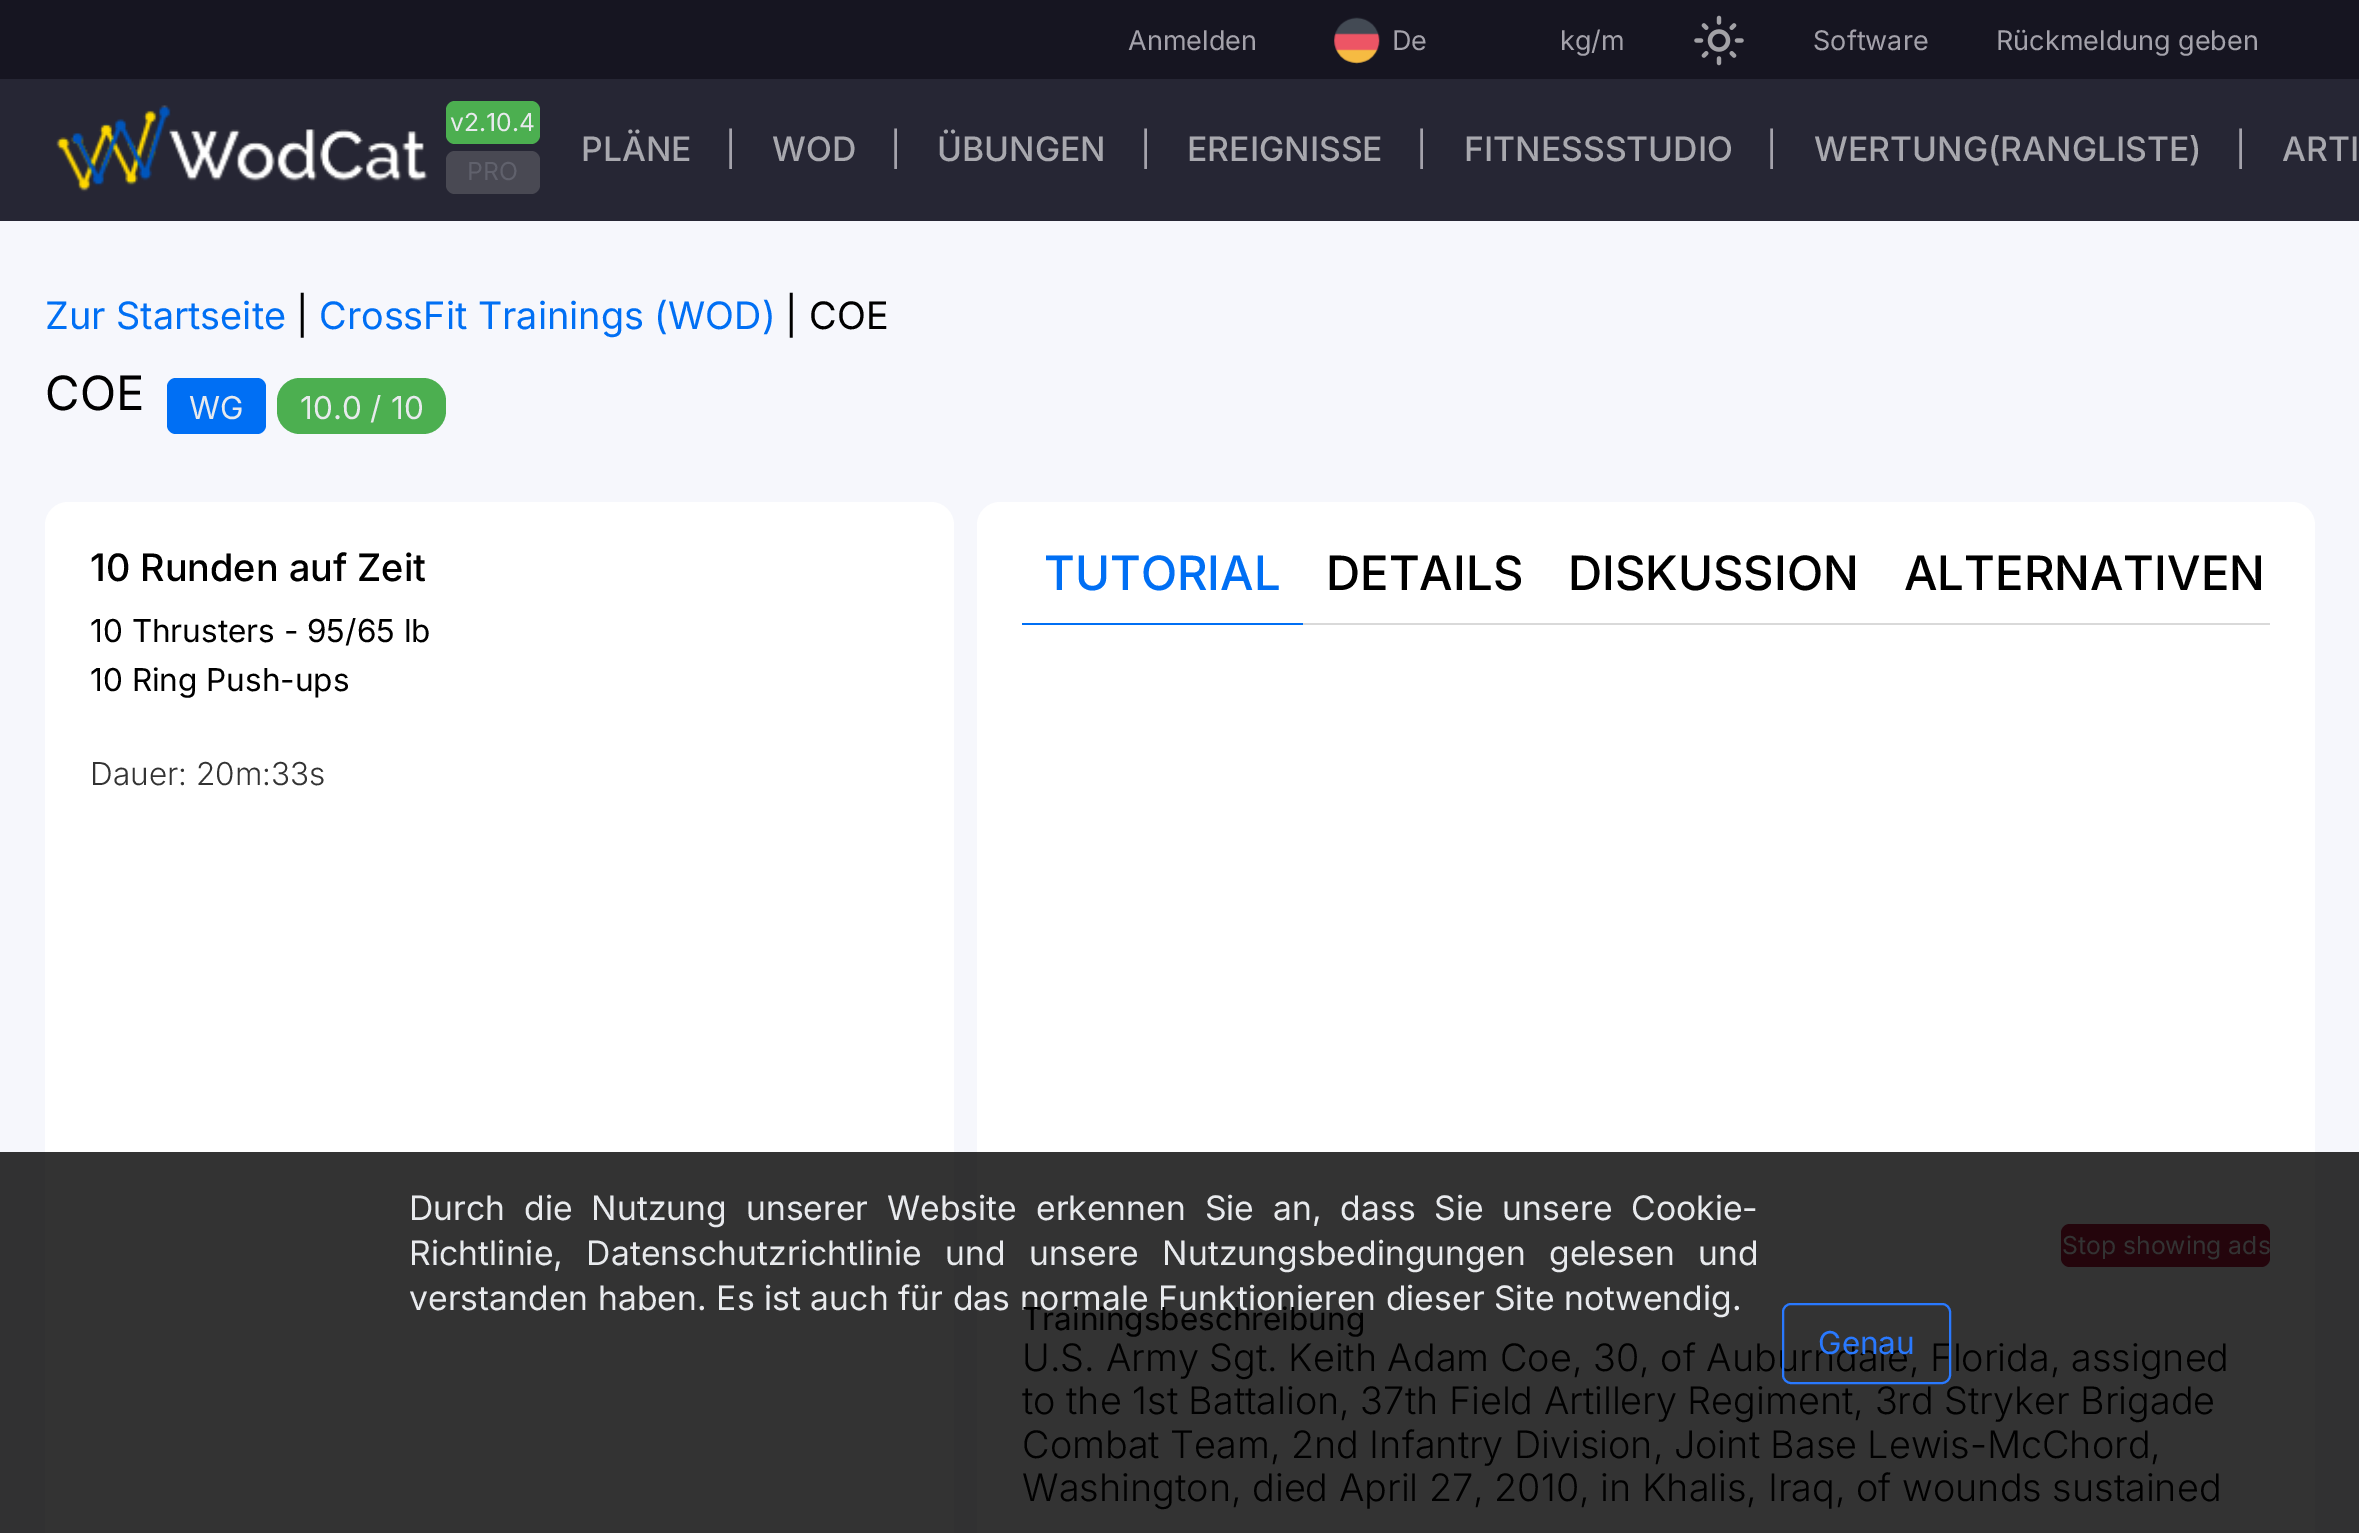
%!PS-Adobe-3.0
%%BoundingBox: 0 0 2359 1533
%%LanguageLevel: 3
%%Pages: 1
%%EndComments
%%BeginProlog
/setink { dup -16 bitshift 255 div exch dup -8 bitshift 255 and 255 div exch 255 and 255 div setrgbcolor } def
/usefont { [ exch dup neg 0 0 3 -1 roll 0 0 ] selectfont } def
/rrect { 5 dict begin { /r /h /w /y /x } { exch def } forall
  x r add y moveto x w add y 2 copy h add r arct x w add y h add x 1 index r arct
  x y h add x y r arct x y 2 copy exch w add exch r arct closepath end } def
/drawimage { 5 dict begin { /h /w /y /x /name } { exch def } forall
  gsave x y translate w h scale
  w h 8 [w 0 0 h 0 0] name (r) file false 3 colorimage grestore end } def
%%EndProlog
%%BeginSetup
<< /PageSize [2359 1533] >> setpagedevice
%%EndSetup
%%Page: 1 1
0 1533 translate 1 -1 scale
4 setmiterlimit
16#F6F7FC setink
0 0 2359 1533 rectfill
[
    [0 1152 2359 381 16#313132]
    [0 79 2359 142 16#262634]
    [0 0 2359 79 16#161521]
] { aload pop setink rectfill } forall
/Inter-Regular 27 usefont
16#A4A2AB setink
1128 50 moveto (Anmelden) show
(img1.raw) 1334 17 46 47 drawimage
1392 50 moveto (De) show
1560 50 moveto (kg/m) show
(img2.raw) 1694 15 50 51 drawimage
1813 50 moveto (Software) show
1996 50 moveto (Rückmeldung geben) show
(img3.raw) 56 105 372 87 drawimage
16#4CAF50 setink
446 101 94 43 9 rrect fill
/Inter-Regular 24.75 usefont
16#E8EAED setink
450 131 moveto (v2.10.4) show
16#494953 setink
446 151 94 43 9 rrect fill
16#60616C setink
467 180 moveto (PRO) show
/Inter-Medium 33.75 usefont
16#A8A8AE setink
581 161 moveto (PLÄNE) show
/Inter-Regular 33.75 usefont
16#A4A2AB setink
725 161 moveto (|) show
/Inter-Medium 33.75 usefont
16#A8A8AE setink
772 161 moveto (WOD) show
/Inter-Regular 33.75 usefont
16#A4A2AB setink
890 161 moveto (|) show
/Inter-Medium 33.75 usefont
16#A8A8AE setink
937 161 moveto (ÜBUNGEN) show
/Inter-Regular 33.75 usefont
16#A4A2AB setink
1140 161 moveto (|) show
/Inter-Medium 33.75 usefont
16#A8A8AE setink
1187 161 moveto (EREIGNISSE) show
/Inter-Regular 33.75 usefont
16#A4A2AB setink
1416 161 moveto (|) show
/Inter-Medium 33.75 usefont
16#A8A8AE setink
1464 161 moveto (FITNESSSTUDIO) show
/Inter-Regular 33.75 usefont
16#A4A2AB setink
1766 161 moveto (|) show
/Inter-Medium 33.75 usefont
16#A8A8AE setink
1814 161 moveto (WERTUNG\(RANGLISTE\)) show
/Inter-Regular 33.75 usefont
16#A4A2AB setink
2235 161 moveto (|) show
/Inter-Medium 33.75 usefont
16#A8A8AE setink
2282 161 moveto (ARTI) show
16#FFFFFF setink
45 502 909 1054 23 rrect fill
16#333333 setink
45 1152 909 381 rectfill
16#FFFFFF setink
977 502 1338 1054 23 rrect fill
16#333333 setink
977 1152 1338 381 rectfill
/Inter-Regular 33.75 usefont
16#E8EAED setink
409 1220 moveto 9.25 0 32 (Durch die Nutzung unserer Website erkennen Sie an, dass Sie unsere Cookie-) widthshow
409 1265 moveto 13.75 0 32 (Richtlinie, Datenschutzrichtlinie und unsere Nutzungsbedingungen gelesen und) widthshow
409 1310 moveto (verstanden haben. Es ist auch für das normale Funktionieren dieser Site notwendig.) show
/Inter-Light 37.8 usefont
16#000000 setink
1022 1371 moveto -0.1 0 32 (U.S. Army Sgt. Keith Adam Coe, 30, of Auburndale, Florida, assigned) widthshow
16#2979FF setink
2 setlinewidth
1783 1304 167 79 8 rrect stroke
/Inter-Regular 31.5 usefont
1818 1354 moveto (Genau) show
/Inter-Regular 37.8 usefont
16#006FF4 setink
45 329 moveto (Zur Startseite) show
16#000000 setink
296 329 moveto (|) show
16#006FF4 setink
319 329 moveto (CrossFit Trainings \(WOD\)) show
16#000000 setink
785 329 moveto (|) show
809 329 moveto (COE) show
/Inter-Regular 47.25 usefont
45 410 moveto (COE) show
16#006FF4 setink
167 378 99 56 9 rrect fill
/Inter-Regular 31.5 usefont
16#E8EAED setink
189 419 moveto (WG) show
16#4CAF50 setink
277 378 169 56 23 rrect fill
16#E8EAED setink
300 419 moveto (10.0 / 10) show
/Inter-Medium 37.8 usefont
16#000000 setink
90 581 moveto (10 Runden auf Zeit) show
/Inter-Regular 31.5 usefont
90 642 moveto (10 Thrusters - 95/65 lb) show
90 691 moveto (10 Ring Push-ups) show
/Inter-Light 31.5 usefont
16#333333 setink
90 785 moveto (Dauer: 20m:33s) show
16#006FF4 setink
1022 623 281 2 rectfill
/Inter-Medium 47.25 usefont
1044 590 moveto (TUTORIAL) show
16#000000 setink
1326 590 moveto (DETAILS) show
16#D9D9D9 setink
1303 623 967 2 rectfill
16#000000 setink
1568 590 moveto (DISKUSSION) show
1904 590 moveto (ALTERNATIVEN) show
16#24050C setink
2061 1224 209 43 9 rrect fill
/Inter-Regular 24.75 usefont
16#333333 setink
2062 1254 moveto (Stop showing ads) show
/Inter-Regular 31.5 usefont
16#000000 setink
1022 1330 moveto (Trainingsbeschreibung) show
/Inter-Light 37.8 usefont
1022 1414 moveto -0.1 0 32 (to the 1st Battalion, 37th Field Artillery Regiment, 3rd Stryker Brigade) widthshow
1022 1458 moveto -0.25 0 32 (Combat Team, 2nd Infantry Division, Joint Base Lewis-McChord,) widthshow
1022 1501 moveto -0.1 0 32 (Washington, died April 27, 2010, in Khalis, Iraq, of wounds sustained) widthshow
showpage
%%EOF
